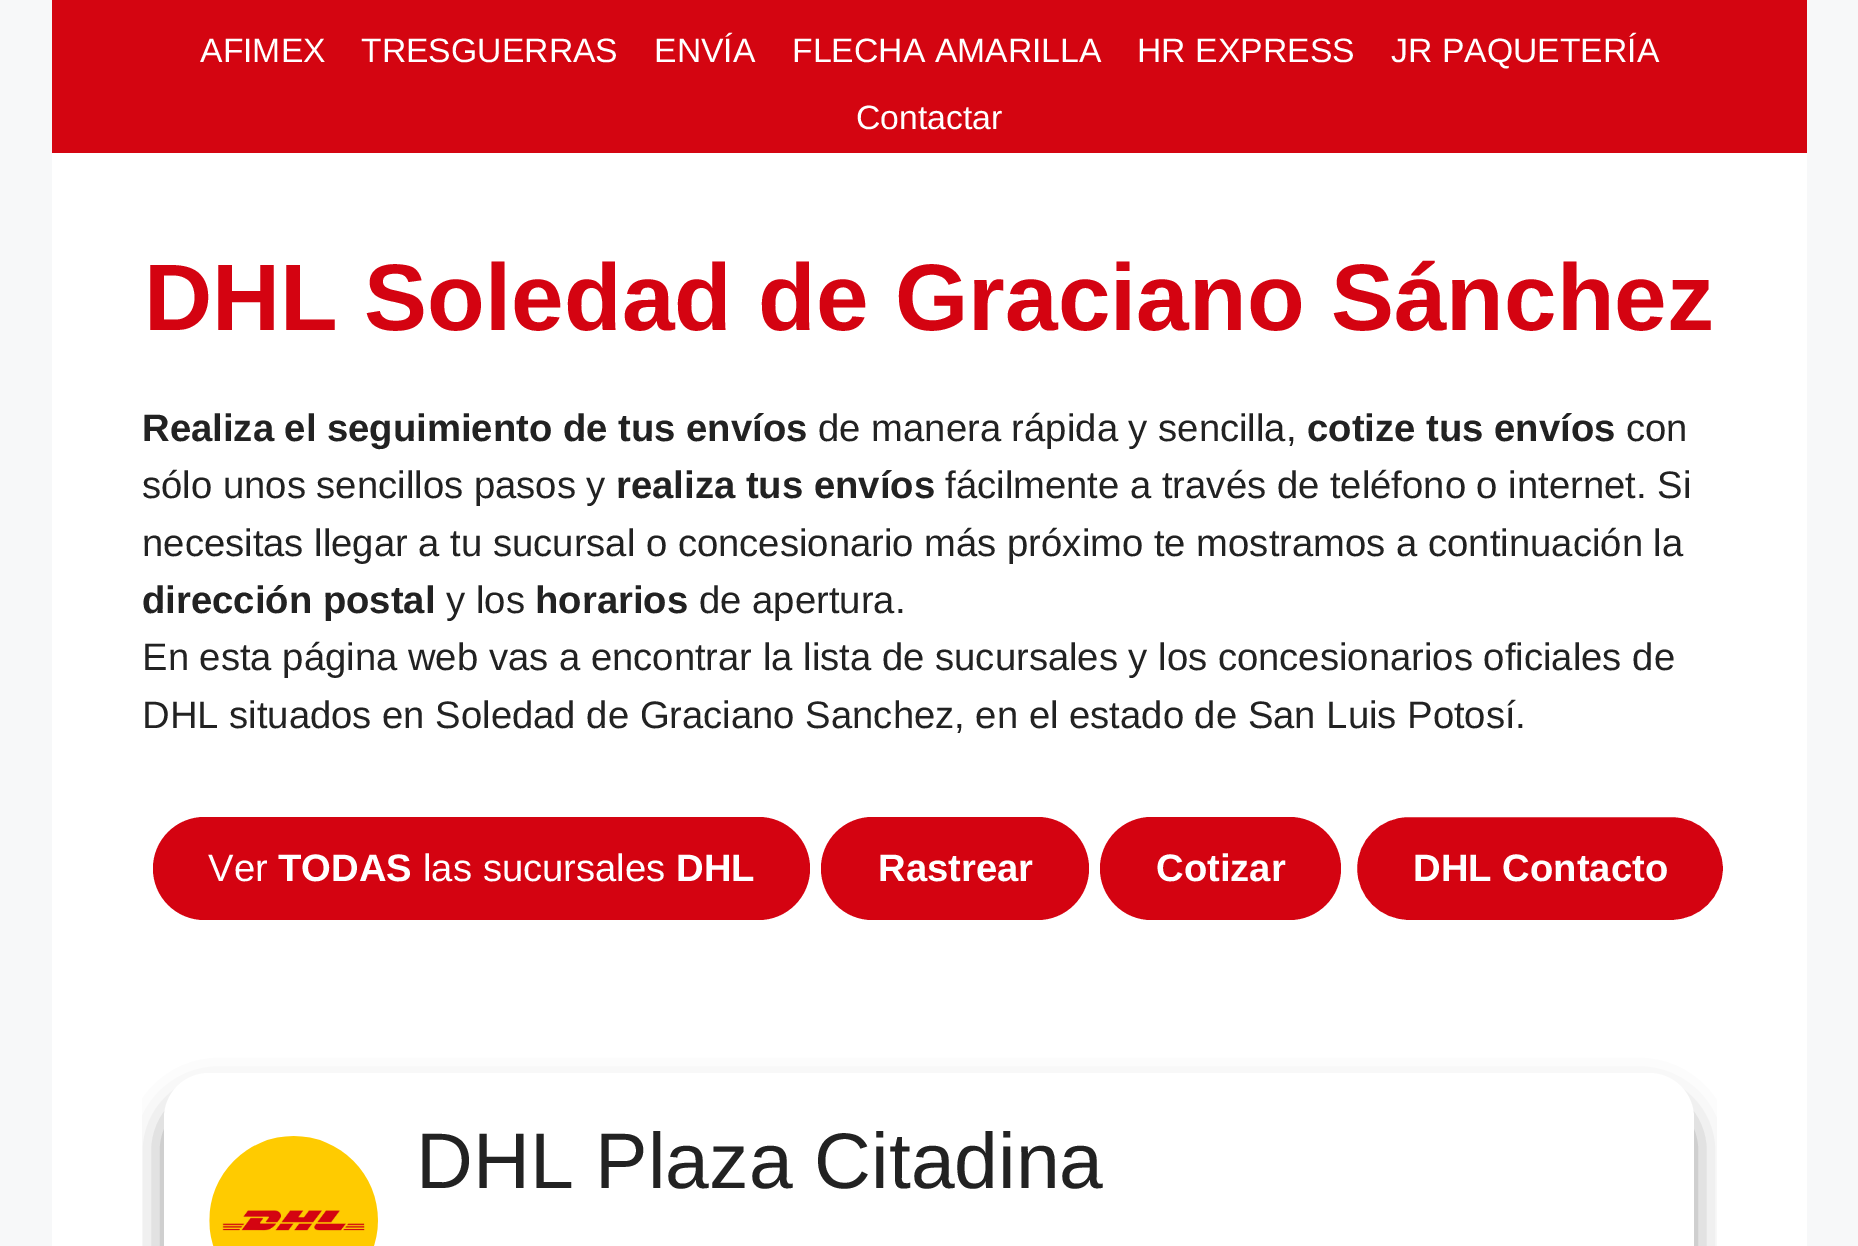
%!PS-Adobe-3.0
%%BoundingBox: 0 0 1858 1246
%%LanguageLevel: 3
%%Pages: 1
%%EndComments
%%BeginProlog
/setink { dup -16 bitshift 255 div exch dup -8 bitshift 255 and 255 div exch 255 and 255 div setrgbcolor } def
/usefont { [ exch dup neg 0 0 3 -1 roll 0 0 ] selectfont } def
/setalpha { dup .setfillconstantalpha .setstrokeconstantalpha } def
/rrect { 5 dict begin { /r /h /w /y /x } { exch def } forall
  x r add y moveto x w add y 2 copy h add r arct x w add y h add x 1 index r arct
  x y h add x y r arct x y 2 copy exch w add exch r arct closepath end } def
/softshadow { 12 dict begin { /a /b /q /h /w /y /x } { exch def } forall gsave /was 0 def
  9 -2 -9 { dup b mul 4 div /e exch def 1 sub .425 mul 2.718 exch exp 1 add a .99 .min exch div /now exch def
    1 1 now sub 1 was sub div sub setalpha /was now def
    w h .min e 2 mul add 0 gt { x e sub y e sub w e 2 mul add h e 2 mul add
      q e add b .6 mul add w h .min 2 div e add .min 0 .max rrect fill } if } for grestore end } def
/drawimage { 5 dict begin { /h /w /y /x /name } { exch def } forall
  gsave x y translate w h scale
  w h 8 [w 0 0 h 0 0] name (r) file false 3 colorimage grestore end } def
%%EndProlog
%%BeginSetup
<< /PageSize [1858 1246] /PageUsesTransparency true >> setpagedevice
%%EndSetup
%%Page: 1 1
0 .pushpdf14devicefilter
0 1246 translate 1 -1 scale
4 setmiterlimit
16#F7F8F9 setink
0 0 1858 1246 rectfill
16#D40511 setink
52 0 1755 153 rectfill
/LiberationSans-Regular 33.75 usefont
16#FFFFFF setink
[
    [(AFIMEX) 200 62]
    [(TRESGUERRAS) 361 62]
    [(ENVÍA) 654 62]
    [(FLECHA AMARILLA) 792 62]
    [(HR EXPRESS) 1137 62]
    [(JR PAQUETERÍA) 1391 62]
    [(Contactar) 856 129]
] { aload pop moveto show } forall
52 153 1755 1093 rectfill
/LiberationSans-Bold 94.5 usefont
16#D40311 setink
144 330 moveto (DHL Soledad de Graciano Sánchez) show
/LiberationSans-Bold 38.25 usefont
16#222222 setink
142 441 moveto (Realiza el seguimiento de tus envíos) show
/LiberationSans-Regular 38.25 usefont
818 441 moveto (de manera rápida y sencilla,) show
/LiberationSans-Bold 38.25 usefont
1307 441 moveto (cotize tus envíos) show
/LiberationSans-Regular 38.25 usefont
1626 441 moveto (con) show
142 498 moveto (sólo unos sencillos pasos y) show
/LiberationSans-Bold 38.25 usefont
616 498 moveto (realiza tus envíos) show
/LiberationSans-Regular 38.25 usefont
945 498 moveto (fácilmente a través de teléfono o internet. Si) show
142 556 moveto (necesitas llegar a tu sucursal o concesionario más próximo te mostramos a continuación la) show
/LiberationSans-Bold 38.25 usefont
142 613 moveto (dirección postal) show
/LiberationSans-Regular 38.25 usefont
446 613 moveto (y los) show
/LiberationSans-Bold 38.25 usefont
535 613 moveto (horarios) show
/LiberationSans-Regular 38.25 usefont
[
    [(de apertura.) 699 613]
    [(En esta página web vas a encontrar la lista de sucursales y los concesionarios oficiales de) 142 670]
    [(DHL situados en Soledad de Graciano Sanchez, en el estado de San Luis Potosí.) 142 728]
] { aload pop moveto show } forall
16#D40311 setink
153 817 657 103 51.5 rrect fill
16#FFFFFF setink
208 881 moveto (Ver) show
/LiberationSans-Bold 38.25 usefont
278 881 moveto (TODAS) show
/LiberationSans-Regular 38.25 usefont
423 881 moveto (las sucursales) show
/LiberationSans-Bold 38.25 usefont
676 881 moveto (DHL) show
16#D40311 setink
821 817 268 103 51.5 rrect fill
16#FFFFFF setink
878 881 moveto (Rastrear) show
16#D40311 setink
1100 817 241 103 51.5 rrect fill
16#FFFFFF setink
1156 881 moveto (Cotizar) show
16#D40311 setink
1354.5 814.5 371 108 54 rrect gsave fill grestore
16#FFFFFF setink
5 setlinewidth
stroke
1413 881 moveto (DHL Contacto) show
gsave
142 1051 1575 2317 rectclip
16#000000 setink
164 1096 1530 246 45 17 0.38 softshadow
grestore
164 1073 1530 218 45 rrect fill
(img1.raw) 209 1136 169 110 drawimage
/LiberationSans-Regular 78.75 usefont
16#222222 setink
416 1188 moveto (DHL Plaza Citadina) show
.poppdf14devicefilter showpage
%%EOF
